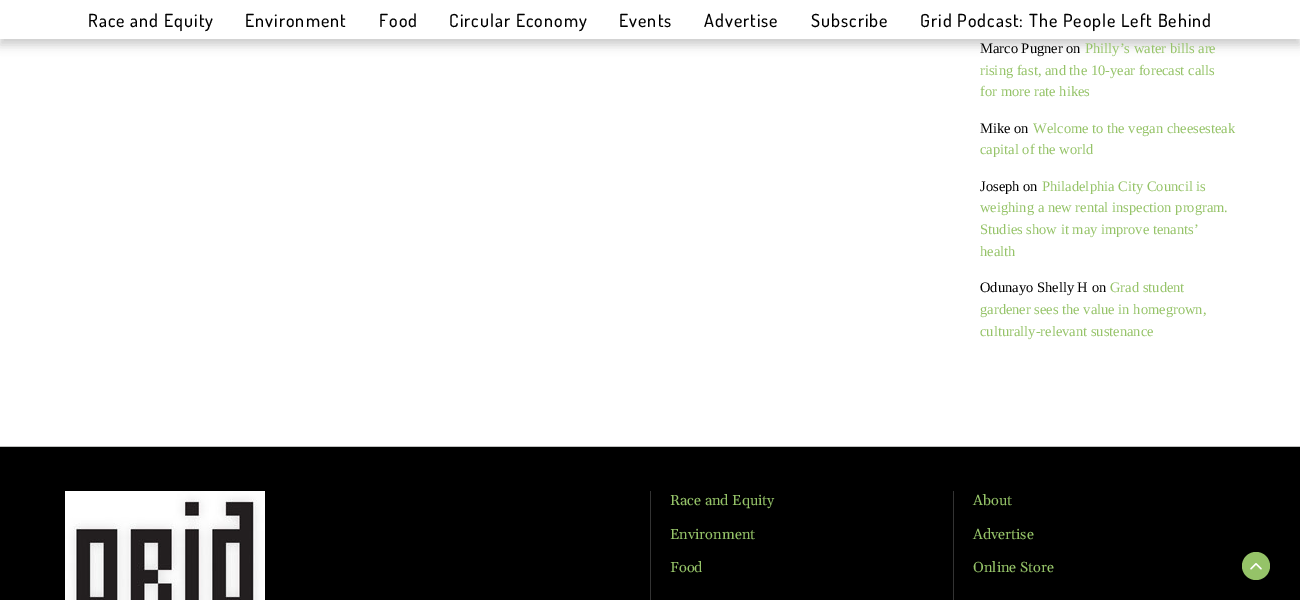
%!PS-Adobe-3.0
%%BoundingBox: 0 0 1300 600
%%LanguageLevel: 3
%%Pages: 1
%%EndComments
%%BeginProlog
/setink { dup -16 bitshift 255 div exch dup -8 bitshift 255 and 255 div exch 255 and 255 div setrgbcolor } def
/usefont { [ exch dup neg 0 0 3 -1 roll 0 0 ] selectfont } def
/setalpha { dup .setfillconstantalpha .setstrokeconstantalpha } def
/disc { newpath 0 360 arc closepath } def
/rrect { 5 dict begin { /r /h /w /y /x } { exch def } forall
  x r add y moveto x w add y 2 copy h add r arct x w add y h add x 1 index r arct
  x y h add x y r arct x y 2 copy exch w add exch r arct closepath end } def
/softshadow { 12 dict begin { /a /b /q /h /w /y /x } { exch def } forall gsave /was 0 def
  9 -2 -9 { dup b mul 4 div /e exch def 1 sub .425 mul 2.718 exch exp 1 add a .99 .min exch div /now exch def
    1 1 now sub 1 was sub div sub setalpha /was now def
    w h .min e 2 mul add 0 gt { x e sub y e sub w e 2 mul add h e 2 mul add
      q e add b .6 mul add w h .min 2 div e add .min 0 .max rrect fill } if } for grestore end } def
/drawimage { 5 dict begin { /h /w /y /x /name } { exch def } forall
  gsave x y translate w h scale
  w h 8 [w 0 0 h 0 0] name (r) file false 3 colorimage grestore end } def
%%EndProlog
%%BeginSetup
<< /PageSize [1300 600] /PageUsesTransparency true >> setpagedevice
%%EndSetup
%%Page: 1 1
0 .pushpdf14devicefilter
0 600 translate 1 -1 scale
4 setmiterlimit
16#FFFFFF setink
0 0 1300 600 rectfill
16#000000 setink
0 5 1300 40 0 5 0.2 softshadow
16#FFFFFF setink
0 0 1300 39 rectfill
/Dosis-Medium 18 usefont
16#000000 setink
88 27 moveto 1 0 (Race and Equity) ashow
245 27 moveto 1 0 (Environment) ashow
379 27 moveto 1 0 (Food) ashow
449 27 moveto 1 0 (Circular Economy) ashow
619 27 moveto 1 0 (Events) ashow
704 27 moveto 1 0 (Advertise) ashow
811 27 moveto 1 0 (Subscribe) ashow
920 27 moveto 1 0 (Grid Podcast: The People Left Behind) ashow
/LiberationSerif-Regular 14.5 usefont
980 53 moveto (Marco Pugner on) show
16#95C368 setink
[
    [(Philly’s water bills are) 1085 53]
    [(rising fast, and the 10-year forecast calls) 980 75]
    [(for more rate hikes) 980 96]
] { aload pop moveto show } forall
16#000000 setink
980 133 moveto (Mike on) show
16#95C368 setink
1033 133 moveto (Welcome to the vegan cheesesteak) show
980 154 moveto (capital of the world) show
16#000000 setink
980 191 moveto (Joseph on) show
16#95C368 setink
[
    [(Philadelphia City Council is) 1042 191]
    [(weighing a new rental inspection program.) 980 212]
    [(Studies show it may improve tenants’) 980 234]
    [(health) 980 256]
] { aload pop moveto show } forall
16#000000 setink
980 292 moveto (Odunayo Shelly H on) show
16#95C368 setink
[
    [(Grad student) 1110 292]
    [(gardener sees the value in homegrown,) 980 314]
    [(culturally-relevant sustenance) 980 336]
] { aload pop moveto show } forall
16#000000 setink
0 447 1300 153 rectfill
16#C0C1C0 setink
0 446 1300 1 rectfill
(img1.raw) 65 491 200 109 drawimage
16#333333 setink
650 491 1 109 rectfill
/Gelasio-Regular 14.5 usefont
16#95C368 setink
[
    [(Race and Equity) 670 505]
    [(Environment) 670 539]
    [(Food) 670 572]
] { aload pop moveto show } forall
16#333333 setink
953 491 1 109 rectfill
16#95C368 setink
[
    [(About) 973 505]
    [(Advertise) 973 539]
    [(Online Store) 973 572]
] { aload pop moveto show } forall
1256 566 14 disc fill
(img2.raw) 1250 563 12 7 drawimage
.poppdf14devicefilter showpage
%%EOF
